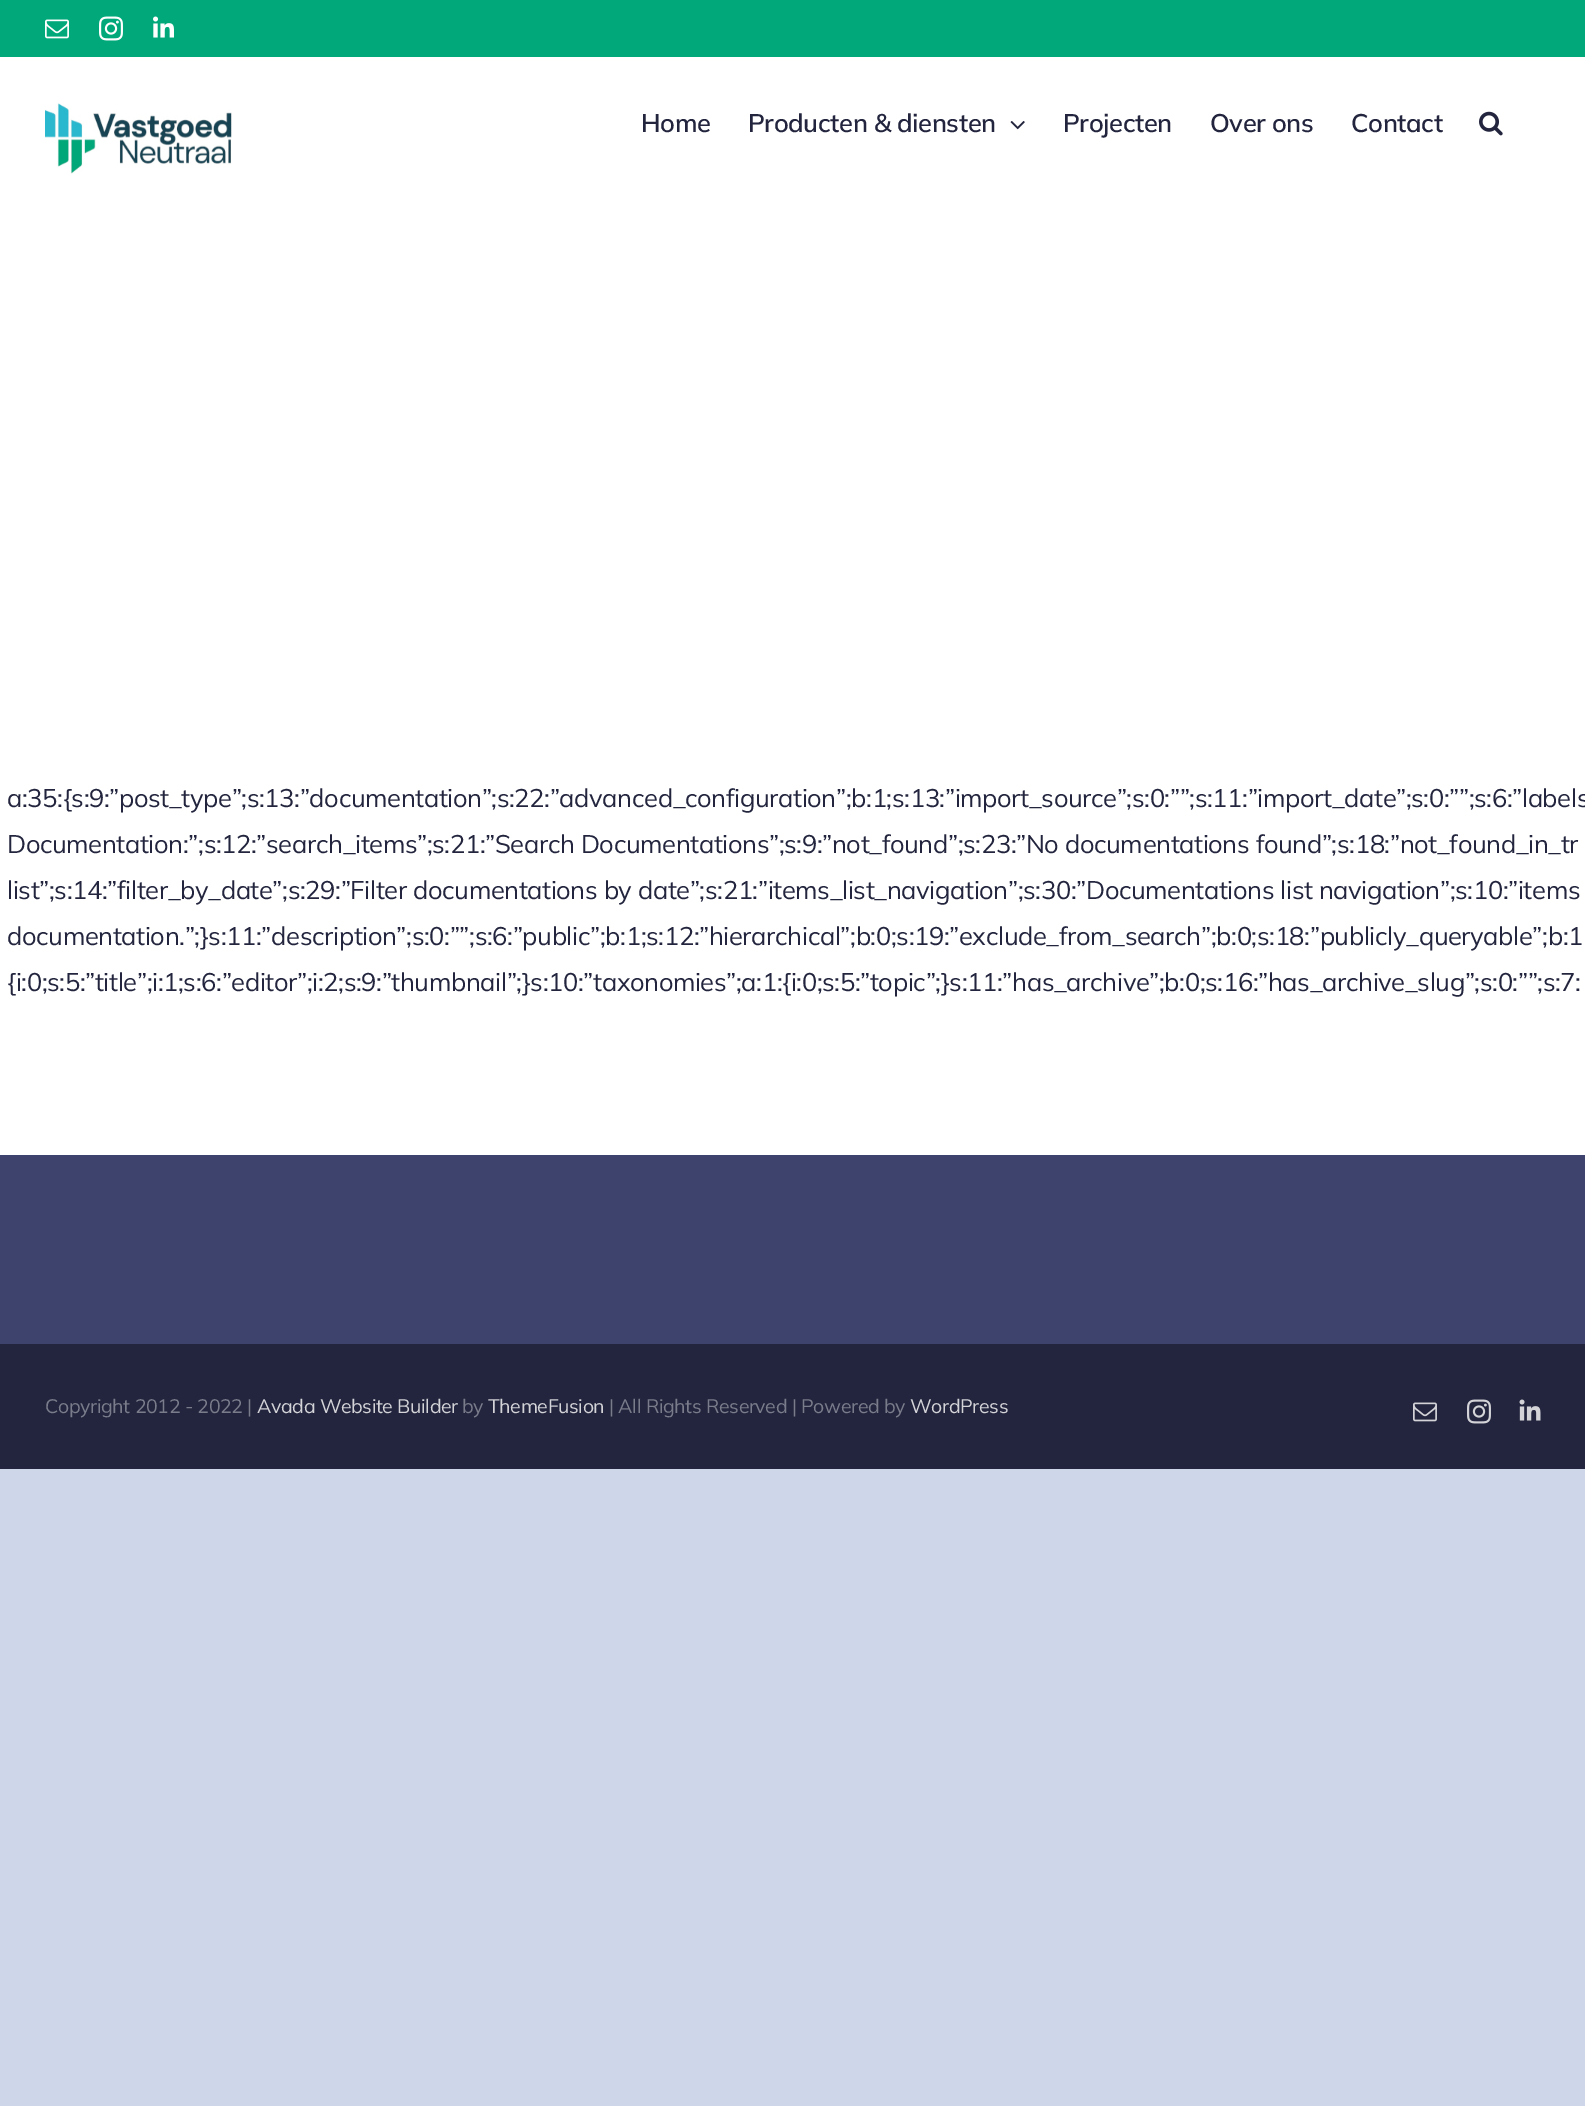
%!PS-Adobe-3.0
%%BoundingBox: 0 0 1585 2106
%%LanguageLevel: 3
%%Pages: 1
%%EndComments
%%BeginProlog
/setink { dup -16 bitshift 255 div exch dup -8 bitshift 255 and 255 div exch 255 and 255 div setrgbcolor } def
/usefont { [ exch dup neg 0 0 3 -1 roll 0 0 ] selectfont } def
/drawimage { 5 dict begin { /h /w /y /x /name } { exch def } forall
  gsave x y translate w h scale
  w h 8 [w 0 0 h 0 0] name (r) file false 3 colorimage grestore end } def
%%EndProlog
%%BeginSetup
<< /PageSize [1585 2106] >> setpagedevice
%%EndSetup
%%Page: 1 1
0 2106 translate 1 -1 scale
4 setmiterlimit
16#CED6EA setink
0 0 1585 2106 rectfill
16#FFFFFF setink
0 57 1585 1098 rectfill
16#00A87A setink
0 0 1585 57 rectfill
(img1.raw) 45 19 24 20 drawimage
(img2.raw) 99 16 24 25 drawimage
(img3.raw) 153 16 21 22 drawimage
(img4.raw) 45 103 187 71 drawimage
/Mulish-SemiBold 25.5 usefont
16#22253D setink
641 132 moveto -0.38 0 (Home) ashow
748 132 moveto -0.38 0 (Producten & diensten) ashow
(img5.raw) 1010 121 15 9 drawimage
1063 132 moveto -0.38 0 (Projecten) ashow
1210 132 moveto -0.38 0 (Over ons) ashow
1351 132 moveto -0.38 0 (Contact) ashow
(img6.raw) 1479 111 24 25 drawimage
/Mulish-Regular 25.5 usefont
7 807 moveto -0.38 0 (a:35:{s:9:”post_type”;s:13:”documentation”;s:22:”advanced_configuration”;b:1;s:13:”import_source”;s:0:””;s:11:”import_date”;s:0:””;s:6:”labels) ashow
7 853 moveto -0.38 0 (Documentation:”;s:12:”search_items”;s:21:”Search Documentations”;s:9:”not_found”;s:23:”No documentations found”;s:18:”not_found_in_tr) ashow
7 899 moveto -0.38 0 (list”;s:14:”filter_by_date”;s:29:”Filter documentations by date”;s:21:”items_list_navigation”;s:30:”Documentations list navigation”;s:10:”items) ashow
7 945 moveto -0.38 0 (documentation.”;}s:11:”description”;s:0:””;s:6:”public”;b:1;s:12:”hierarchical”;b:0;s:19:”exclude_from_search”;b:0;s:18:”publicly_queryable”;b:1) ashow
7 991 moveto -0.38 0 ({i:0;s:5:”title”;i:1;s:6:”editor”;i:2;s:9:”thumbnail”;}s:10:”taxonomies”;a:1:{i:0;s:5:”topic”;}s:11:”has_archive”;b:0;s:16:”has_archive_slug”;s:0:””;s:7:) ashow
16#3D436D setink
0 1155 1585 189 rectfill
16#22253D setink
0 1344 1585 125 rectfill
/Mulish-Regular 19.5 usefont
16#7A7C8B setink
45 1413 moveto -0.38 0 (Copyright 2012 - 2022 |) ashow
16#D3D3D8 setink
257 1413 moveto -0.38 0 (Avada Website Builder) ashow
16#7A7C8B setink
462 1413 moveto -0.38 0 (by) ashow
16#D3D3D8 setink
488 1413 moveto -0.38 0 (ThemeFusion) ashow
16#7A7C8B setink
609 1413 moveto -0.38 0 (| All Rights Reserved | Powered by) ashow
16#D3D3D8 setink
910 1413 moveto -0.38 0 (WordPress) ashow
(img7.raw) 1413 1402 24 20 drawimage
(img8.raw) 1467 1399 24 25 drawimage
(img9.raw) 1519 1399 22 22 drawimage
showpage
%%EOF
